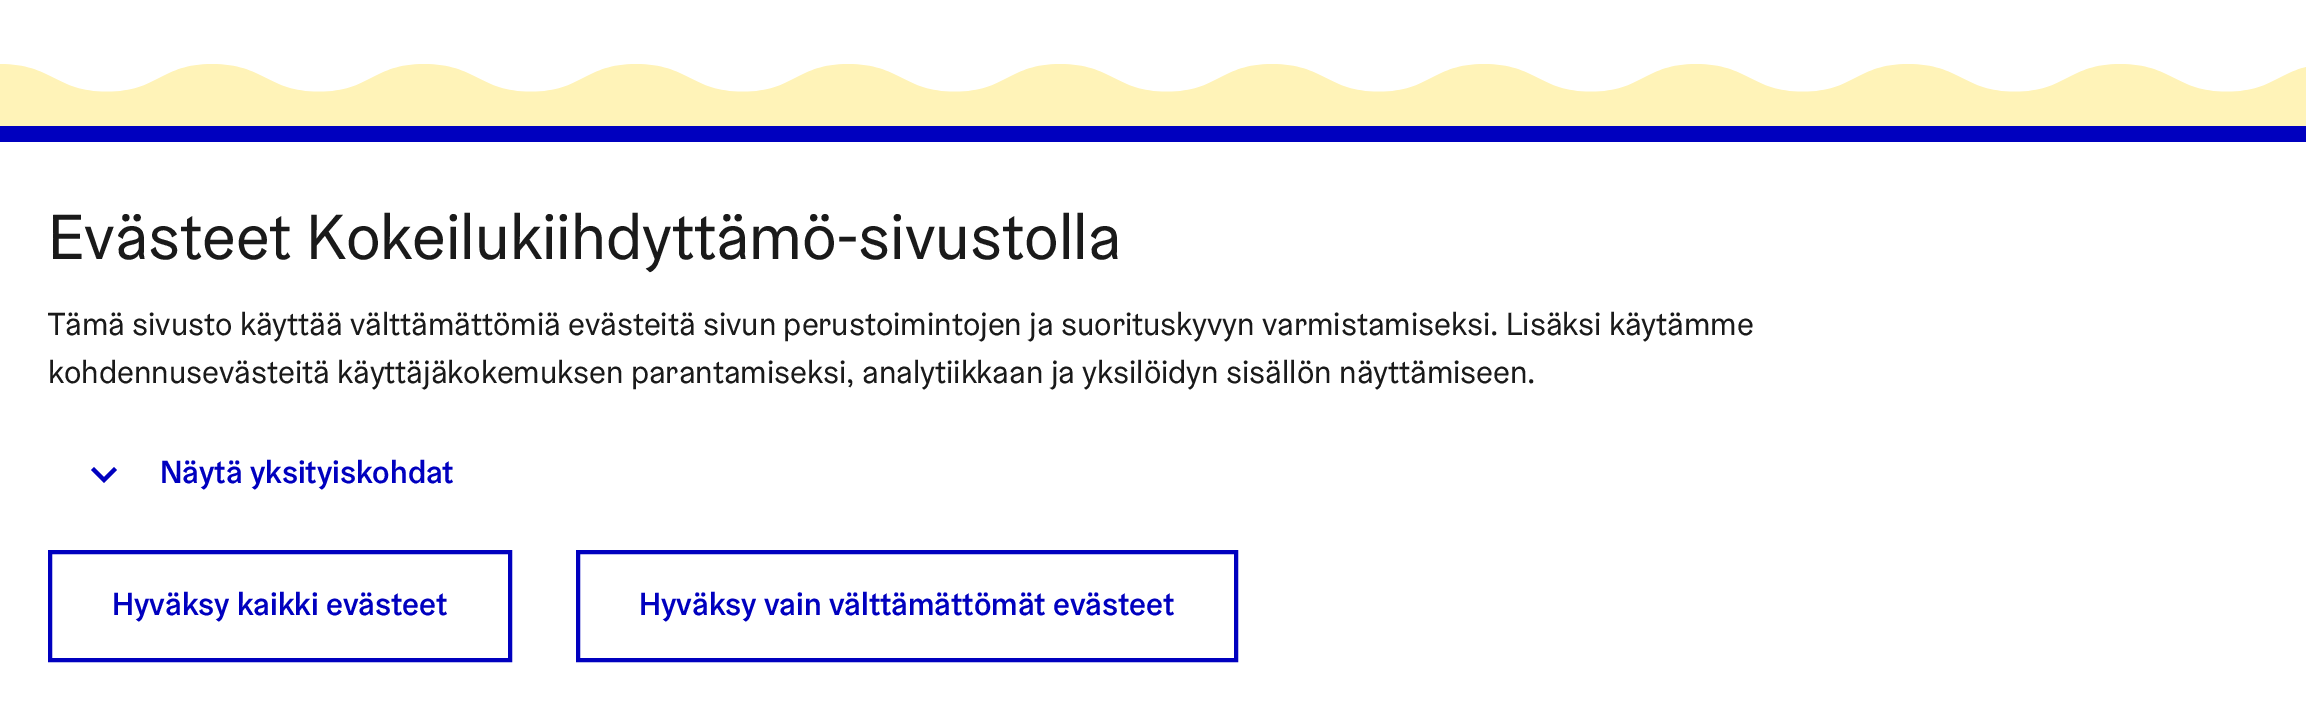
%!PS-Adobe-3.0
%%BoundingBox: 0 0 2306 705
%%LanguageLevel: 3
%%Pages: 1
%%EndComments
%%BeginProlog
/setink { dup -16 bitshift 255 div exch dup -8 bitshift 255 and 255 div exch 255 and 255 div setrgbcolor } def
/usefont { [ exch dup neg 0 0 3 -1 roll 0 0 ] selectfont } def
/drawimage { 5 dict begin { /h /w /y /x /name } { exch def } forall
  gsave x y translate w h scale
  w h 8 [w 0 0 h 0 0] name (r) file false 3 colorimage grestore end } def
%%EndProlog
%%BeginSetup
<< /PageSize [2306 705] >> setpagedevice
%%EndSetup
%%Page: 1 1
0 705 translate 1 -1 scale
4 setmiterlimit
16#FFFFFF setink
0 0 2306 705 rectfill
(img1.raw) 0 64 2306 32 drawimage
16#FFF3B8 setink
0 96 2306 30 rectfill
16#0000BF setink
0 126 2306 16 rectfill
/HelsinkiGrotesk-Regular 64 usefont
16#1A1A1A setink
48 259 moveto (Evästeet Kokeilukiihdyttämö-sivustolla) show
/HelsinkiGrotesk-Regular 32 usefont
48 335 moveto (Tämä sivusto käyttää välttämättömiä evästeitä sivun perustoimintojen ja suorituskyvyn varmistamiseksi. Lisäksi käytämme) show
48 383 moveto (kohdennusevästeitä käyttäjäkokemuksen parantamiseksi, analytiikkaan ja yksilöidyn sisällön näyttämiseen.) show
16#0000BF setink
104 477 moveto 114 467 lineto 117 470 lineto 104 483 lineto 91 470 lineto 94 467 lineto closepath eofill
/HelsinkiGrotesk-Medium 32 usefont
160 483 moveto (Näytä yksityiskohdat) show
4 setlinewidth
50 552 460 108 rectstroke
112 615 moveto (Hyväksy kaikki evästeet) show
578 552 658 108 rectstroke
639 615 moveto (Hyväksy vain välttämättömät evästeet) show
showpage
%%EOF
